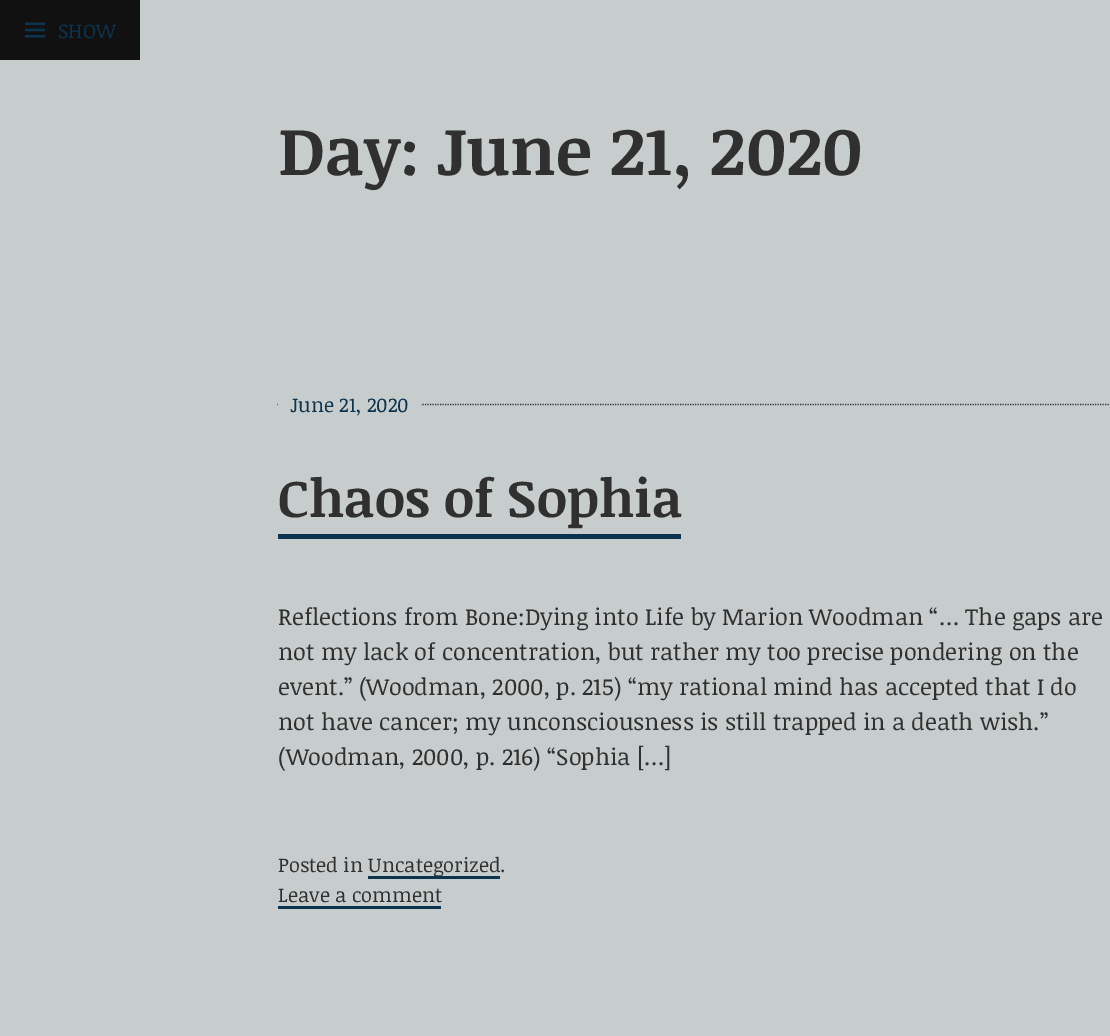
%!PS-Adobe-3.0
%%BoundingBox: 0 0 1110 1036
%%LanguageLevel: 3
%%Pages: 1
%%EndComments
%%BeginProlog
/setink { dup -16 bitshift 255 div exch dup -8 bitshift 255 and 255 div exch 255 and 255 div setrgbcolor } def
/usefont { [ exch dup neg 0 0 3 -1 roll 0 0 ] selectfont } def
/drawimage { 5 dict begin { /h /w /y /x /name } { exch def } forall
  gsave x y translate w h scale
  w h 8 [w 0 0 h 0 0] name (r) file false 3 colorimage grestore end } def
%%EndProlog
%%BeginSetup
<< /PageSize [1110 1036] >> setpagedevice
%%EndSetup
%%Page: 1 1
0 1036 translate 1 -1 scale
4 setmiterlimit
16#C7CDCD setink
0 0 1110 1036 rectfill
16#111111 setink
0 0 140 60 rectfill
(img1.raw) 25 22 20 16 drawimage
/NoticiaText-Regular 20 usefont
16#0C344F setink
58 38 moveto (SHOW) show
/NoticiaText-Bold 67.5 usefont
16#303030 setink
278 175 moveto (Day: June 21, 2020) show
1.2 setlinewidth
[1.25 1.25] 0 setdash
277.5 404.5 moveto 1110 404.5 lineto stroke
16#C7CDCD setink
278 403 143 3 rectfill
/NoticiaText-Regular 20 usefont
16#0C344F setink
290 412 moveto (June 21, 2020) show
/NoticiaText-Bold 52.75 usefont
16#303030 setink
278 517 moveto (Chaos of Sophia) show
16#0C344F setink
278 534 403 5 rectfill
/NoticiaText-Regular 23.4 usefont
16#303030 setink
[
    [(Reflections from Bone:Dying into Life by Marion Woodman “… The gaps are) 278 625]
    [(not my lack of concentration, but rather my too precise pondering on the) 278 660]
    [(event.” \(Woodman, 2000, p. 215\) “my rational mind has accepted that I do) 278 695]
    [(not have cancer; my unconsciousness is still trapped in a death wish.”) 278 730]
    [(\(Woodman, 2000, p. 216\) “Sophia […]) 278 765]
] { aload pop moveto show } forall
/NoticiaText-Regular 20 usefont
278 872 moveto (Posted in Uncategorized) show
500 872 moveto (.) show
16#0C344F setink
368 876 132 3 rectfill
16#303030 setink
278 902 moveto (Leave a comment) show
16#0C344F setink
278 906 163 3 rectfill
showpage
%%EOF
